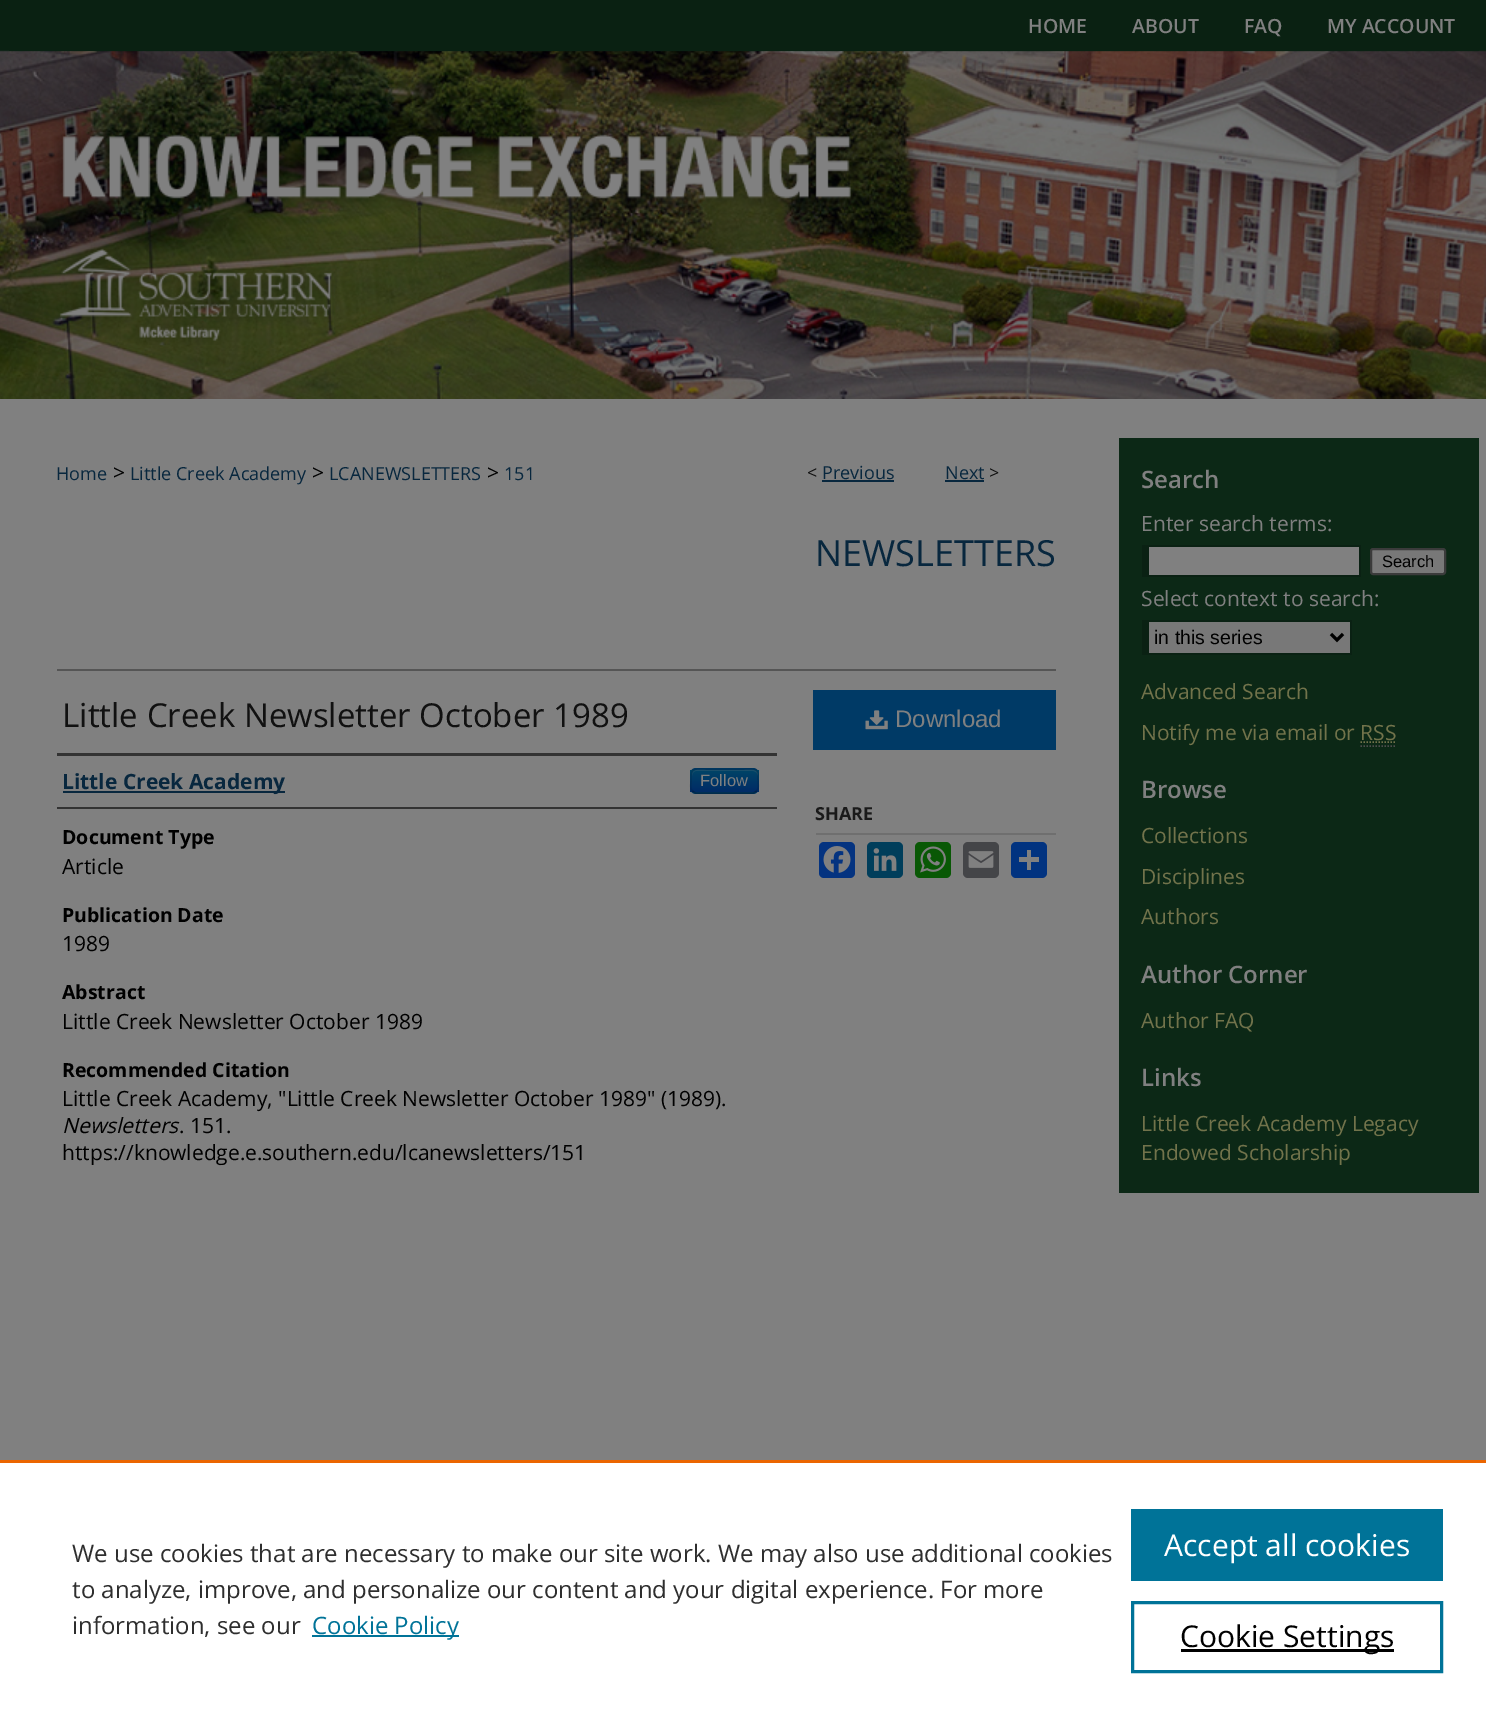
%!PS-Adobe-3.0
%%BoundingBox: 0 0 1486 1714
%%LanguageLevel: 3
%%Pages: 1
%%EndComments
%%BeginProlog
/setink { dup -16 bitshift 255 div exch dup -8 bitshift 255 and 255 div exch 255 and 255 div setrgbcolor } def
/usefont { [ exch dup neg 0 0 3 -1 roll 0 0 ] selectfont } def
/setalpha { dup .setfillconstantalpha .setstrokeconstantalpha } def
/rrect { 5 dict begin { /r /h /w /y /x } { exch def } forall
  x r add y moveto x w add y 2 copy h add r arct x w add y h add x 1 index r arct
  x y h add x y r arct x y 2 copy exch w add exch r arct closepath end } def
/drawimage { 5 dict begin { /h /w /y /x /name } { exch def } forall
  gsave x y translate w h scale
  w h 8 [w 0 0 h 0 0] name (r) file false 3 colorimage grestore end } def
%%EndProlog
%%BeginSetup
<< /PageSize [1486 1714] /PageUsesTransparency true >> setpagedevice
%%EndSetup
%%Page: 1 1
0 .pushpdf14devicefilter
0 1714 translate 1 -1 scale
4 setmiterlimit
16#808080 setink
0 0 1486 1714 rectfill
(img1.raw) 0 0 1486 399 drawimage
16#0A2113 setink
9 50 1470 1 rectfill
/OpenSans-SemiBold 19.5 usefont
16#808080 setink
[
    [(HOME) 1028 33]
    [(ABOUT) 1132 33]
    [(FAQ) 1244 33]
    [(MY ACCOUNT) 1327 33]
] { aload pop moveto show } forall
(img2.raw) 54 126 802 81 drawimage
(img3.raw) 59 242 278 103 drawimage
/OpenSans-Regular 18 usefont
16#08273E setink
56 480 moveto (Home) show
/OpenSans-Regular 21 usefont
16#000000 setink
113 480 moveto (>) show
/OpenSans-Regular 18 usefont
16#08273E setink
130 480 moveto (Little Creek Academy) show
/OpenSans-Regular 21 usefont
16#000000 setink
312 480 moveto (>) show
/OpenSans-Regular 18 usefont
16#08273E setink
329 480 moveto (LCANEWSLETTERS) show
/OpenSans-Regular 21 usefont
16#000000 setink
487 480 moveto (>) show
/OpenSans-Regular 18 usefont
16#08273E setink
504 480 moveto (151) show
16#111111 setink
807 479 moveto (<) show
16#08273E setink
822 479 moveto (Previous) show
822 480 72 2 rectfill
945 479 moveto (Next) show
945 480 39 2 rectfill
16#111111 setink
989 479 moveto (>) show
/OpenSans-Regular 36 usefont
16#08273E setink
815 566 moveto (NEWSLETTERS) show
16#555555 setink
57 669 999 2 rectfill
/OpenSans-Regular 33 usefont
16#111111 setink
62 727 moveto (Little Creek Newsletter October 1989) show
[
    [57 753 720 3 16#333333]
    [57 807 720 2 16#333333]
    [63 791 222 2 16#08273E]
] { aload pop setink rectfill } forall
/OpenSans-Bold 21 usefont
62 789 moveto (Little Creek Academy) show
16#003A66 setink
690 768 69 26 6 rrect fill
gsave
690 768 69 26 6 rrect clip newpath
gsave 690 770 moveto 759 770 lineto 759 792 lineto 690 792 lineto closepath clip newpath
<< /ShadingType 2 /ColorSpace /DeviceRGB /Coords [725 770 725 792] /Extend [true true] /Function << /FunctionType 2 /Domain [0 1] /C0 [0 0.267 0.4] /C1 [0 0.169 0.4] /N 1 >> >> shfill grestore
grestore
0.2 setalpha
16#808080 setink
696 771 moveto 753 771 lineto 755 771 758 773 758 776 curveto 758 768 750 770 744 770 curveto 706 770 lineto 700 770 692 768 692 776 curveto 692 773 694 771 696 771 curveto closepath fill
0.25 setalpha
16#000000 setink
1.5 setlinewidth
756.5 791 moveto 755.5 792 754.5 793 753 793 curveto 696 793 lineto 694.5 793 693.5 792 692.5 791 curveto stroke
0.1 setalpha
692.5 791 moveto 689.5 788.5 691 784 691 781 curveto 691 767.5 691.5 769 705.5 769 curveto 743.5 769 lineto 757.5 769 758 767.5 758 781 curveto 758 784 759.5 788.5 756.5 791 curveto stroke
/LiberationSans-Regular 16.5 usefont
1 setalpha
16#808080 setink
700 786 moveto (Follow) show
/OpenSans-Bold 19.5 usefont
16#000000 setink
62 844 moveto (Document Type) show
/OpenSans-Regular 21 usefont
62 874 moveto (Article) show
/OpenSans-Bold 19.5 usefont
62 922 moveto (Publication Date) show
/OpenSans-Regular 21 usefont
62 951 moveto (1989) show
/OpenSans-Bold 19.5 usefont
62 999 moveto (Abstract) show
/OpenSans-Regular 21 usefont
62 1029 moveto (Little Creek Newsletter October 1989) show
/OpenSans-Bold 19.5 usefont
62 1077 moveto (Recommended Citation) show
/OpenSans-Regular 21 usefont
62 1106 moveto (Little Creek Academy, "Little Creek Newsletter October 1989" \(1989\).) show
/OpenSans-Italic 21 usefont
62 1133 moveto (Newsletters) show
/OpenSans-Regular 21 usefont
179 1133 moveto (. 151.) show
62 1160 moveto (https://knowledge.e.southern.edu/lcanewsletters/151) show
16#003A66 setink
813 690 243 60 rectfill
(img4.raw) 865 710 23 20 drawimage
/LiberationSans-Regular 24 usefont
16#808080 setink
895 727 moveto (Download) show
16#6F6F6F setink
816 833 240 2 rectfill
/OpenSans-Bold 18 usefont
16#1A1A1A setink
815 820 moveto (SHARE) show
16#043380 setink
819 842 36 36 5 rrect fill
(img5.raw) 823 846 28 27 drawimage
16#003E5B setink
867 842 36 36 5 rrect fill
(img6.raw) 873 848 24 23 drawimage
16#095805 setink
915 842 36 36 5 rrect fill
(img7.raw) 920 846 26 27 drawimage
16#444548 setink
963 842 36 36 5 rrect fill
(img8.raw) 968 851 26 17 drawimage
16#013380 setink
1011 842 36 36 5 rrect fill
[
    [1027 850 4 20 16#808080]
    [1019 857 20 5 16#808080]
    [1119 438 360 755 16#0C2816]
] { aload pop setink rectfill } forall
/OpenSans-SemiBold 24 usefont
16#808080 setink
1141 488 moveto (Search) show
/OpenSans-Regular 21 usefont
1141 531 moveto (Enter search terms:) show
[
    [1149 547 210 28 16#808080]
    [1142 545 219 2 16#0A2113]
    [1359 545 2 31 16#0A2113]
    [1142 575 219 2 16#0A2113]
    [1142 545 7 31 16#0A2113]
] { aload pop setink rectfill } forall
16#787878 setink
1371 549 74 25 2 rrect gsave fill grestore
16#3B3B3B setink
2 setlinewidth
stroke
/LiberationSans-Regular 16.5 usefont
16#000000 setink
1382 567 moveto (Search) show
/OpenSans-Regular 21 usefont
16#808080 setink
1141 606 moveto (Select context to search:) show
[
    [1149 622 201 31 16#787878]
    [1142 620 210 2 16#0A2113]
    [1350 620 2 34 16#0A2113]
    [1142 653 210 2 16#0A2113]
    [1142 620 7 34 16#0A2113]
] { aload pop setink rectfill } forall
16#000000 setink
3 setlinewidth
1331 634 moveto 1337 640 lineto 1343 634 lineto stroke
/LiberationSans-Regular 19.5 usefont
1154 644 moveto (in this series) show
/OpenSans-Regular 21 usefont
16#72734B setink
1141 699 moveto (Advanced Search) show
1141 740 moveto (Notify me via email or RSS) show
1.5 setlinewidth
[1.5 1.5] 0 setdash
1360.5 742 moveto 1396.5 742 lineto stroke
16#4D4D4D setink
1360.5 746 moveto 1396.5 746 lineto stroke
/OpenSans-SemiBold 24 usefont
16#808080 setink
1141 798 moveto (Browse) show
/OpenSans-Regular 21 usefont
16#72734B setink
[
    [(Collections) 1141 843]
    [(Disciplines) 1141 884]
    [(Authors) 1141 924]
] { aload pop moveto show } forall
/OpenSans-SemiBold 24 usefont
16#808080 setink
1141 983 moveto (Author Corner) show
/OpenSans-Regular 21 usefont
16#72734B setink
1141 1028 moveto (Author FAQ) show
/OpenSans-SemiBold 24 usefont
16#808080 setink
1141 1086 moveto (Links) show
/OpenSans-Regular 21 usefont
16#72734B setink
1141 1131 moveto (Little Creek Academy Legacy) show
1141 1160 moveto (Endowed Scholarship) show
16#FFFFFF setink
0 1463 1486 251 rectfill
16#EB6500 setink
0 1460 1486 3 rectfill
/OpenSans-Regular 24 usefont
16#2E2E2E setink
[
    [(We use cookies that are necessary to make our site work. We may also use additional cookies) 72 1562]
    [(to analyze, improve, and personalize our content and your digital experience. For more) 72 1598]
    [(information, see our) 72 1634]
] { aload pop moveto show } forall
16#007398 setink
312 1635 147 2 rectfill
312 1634 moveto (Cookie Policy) show
1131 1509 312 72 rectfill
/OpenSans-Regular 30 usefont
16#FFFFFF setink
1164 1556 moveto (Accept all cookies) show
16#007398 setink
3 setlinewidth
[] 0 setdash
1132.5 1602.5 309 69 rectstroke
16#000000 setink
1181 1649 213 3 rectfill
1180 1647 moveto (Cookie Settings) show
.poppdf14devicefilter showpage
%%EOF
